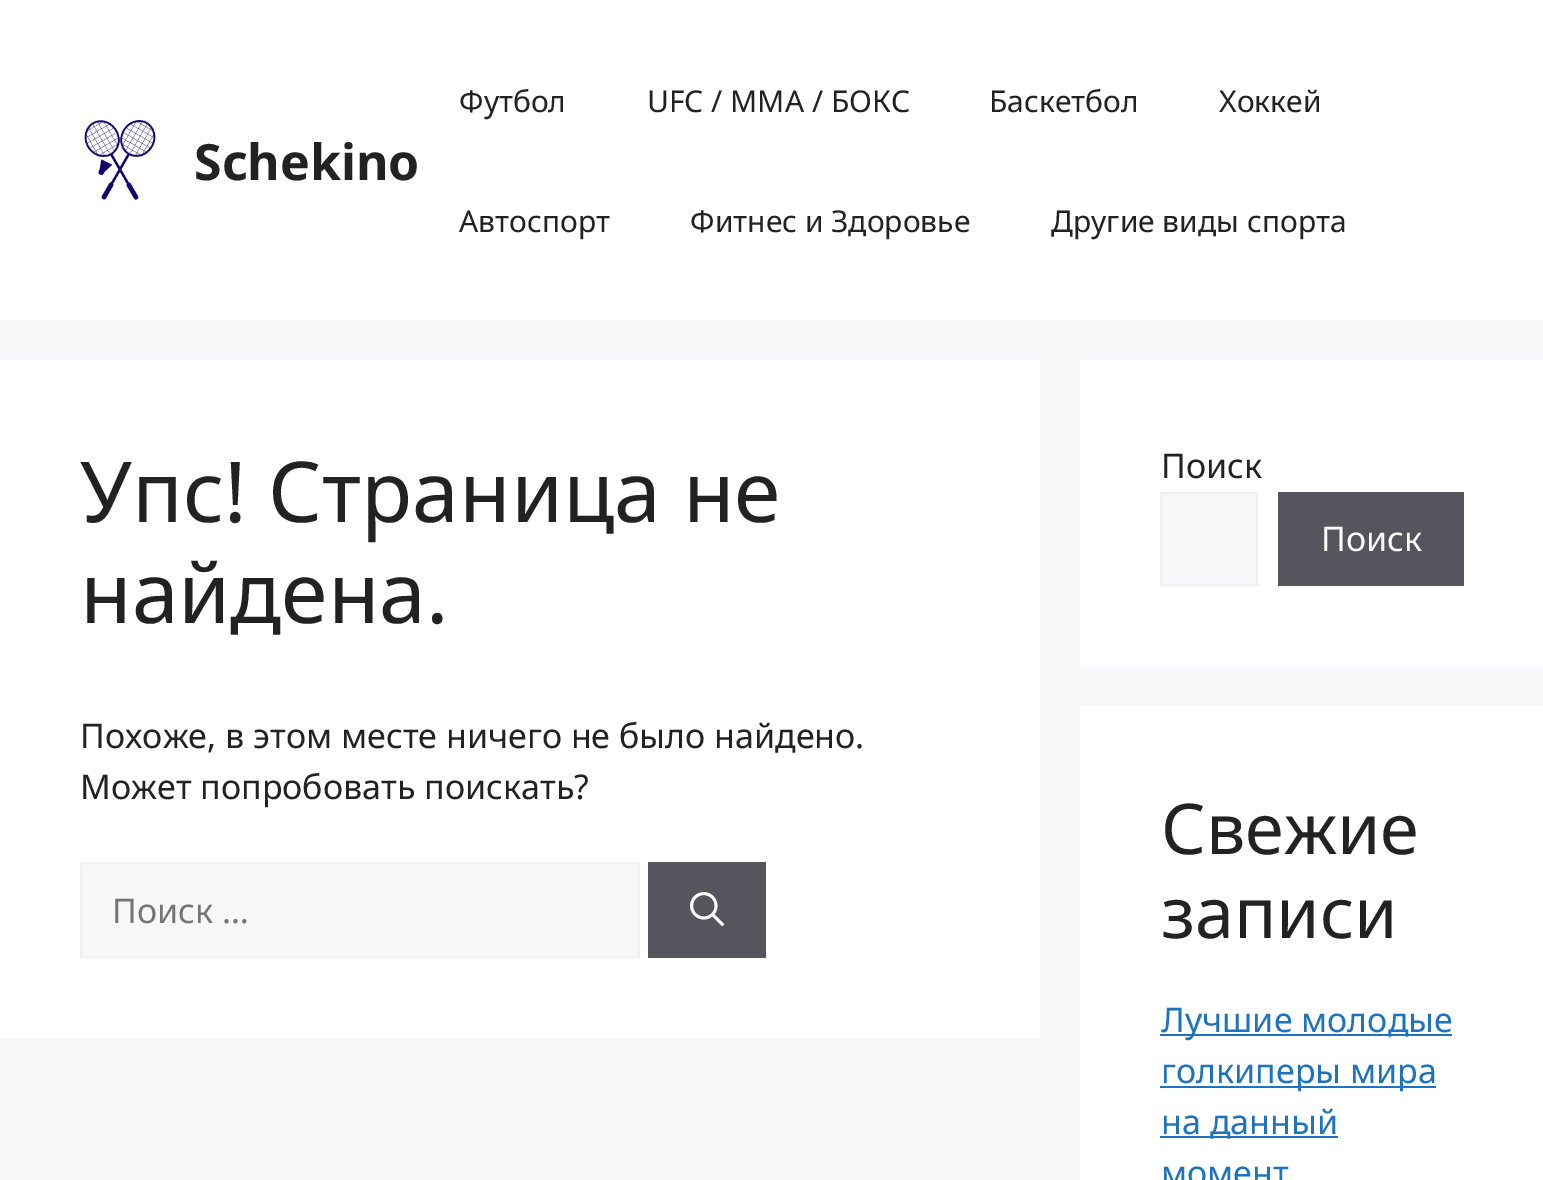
%!PS-Adobe-3.0
%%BoundingBox: 0 0 1543 1180
%%LanguageLevel: 3
%%Pages: 1
%%EndComments
%%BeginProlog
/setink { dup -16 bitshift 255 div exch dup -8 bitshift 255 and 255 div exch 255 and 255 div setrgbcolor } def
/usefont { [ exch dup neg 0 0 3 -1 roll 0 0 ] selectfont } def
/drawimage { 5 dict begin { /h /w /y /x /name } { exch def } forall
  gsave x y translate w h scale
  w h 8 [w 0 0 h 0 0] name (r) file false 3 colorimage grestore end } def
%%EndProlog
%%BeginSetup
<< /PageSize [1543 1180] >> setpagedevice
%%EndSetup
%%Page: 1 1
0 1180 translate 1 -1 scale
4 setmiterlimit
16#F7F8F9 setink
0 0 1543 1180 rectfill
16#FFFFFF setink
0 0 1543 320 rectfill
(img1.raw) 84 120 72 80 drawimage
/NotoSans-Bold 50 usefont
16#222222 setink
194 180 moveto (Schekino) show
/NotoSans-Regular 30 usefont
[
    [(Футбол) 459 112]
    [(UFC / MMA / БОКС) 647 112]
    [(Баскетбол) 989 112]
    [(Хоккей) 1219 112]
    [(Автоспорт) 459 232]
    [(Фитнес и Здоровье) 690 232]
    [(Другие виды спорта) 1051 232]
] { aload pop moveto show } forall
16#FFFFFF setink
0 360 1040 678 rectfill
/NotoSans-Regular 84 usefont
16#222222 setink
80 522 moveto (Упс! Страница не) show
80 623 moveto (найдена.) show
/NotoSans-Regular 34 usefont
80 748 moveto (Похоже, в этом месте ничего не было найдено.) show
80 799 moveto (Может попробовать поискать?) show
16#F7F8F9 setink
81 863 moveto 639 863 lineto 639 957 lineto 81 957 lineto closepath gsave fill grestore
16#F0F0F0 setink
2 setlinewidth
stroke
16#757575 setink
112 923 moveto (Поиск …) show
16#55555E setink
648 862 118 96 rectfill
(img2.raw) 690 892 34 34 drawimage
16#FFFFFF setink
1080 360 463 306 rectfill
16#222222 setink
1161 478 moveto (Поиск) show
16#F7F8F9 setink
1161 493 moveto 1257 493 lineto 1257 585 lineto 1161 585 lineto closepath gsave fill grestore
16#F0F0F0 setink
stroke
16#55555E setink
1278 492 186 94 rectfill
16#FFFFFF setink
1321 551 moveto (Поиск) show
1080 706 463 474 rectfill
/NotoSans-Regular 70 usefont
16#222222 setink
1161 854 moveto (Свежие) show
1161 938 moveto (записи) show
16#1E73BE setink
1160 1034 292 2 rectfill
/NotoSans-Regular 34 usefont
1161 1032 moveto (Лучшие молодые) show
1160 1086 276 2 rectfill
1161 1083 moveto (голкиперы мира) show
1160 1136 178 2 rectfill
1161 1134 moveto (на данный) show
1161 1185 moveto (момент) show
showpage
%%EOF
